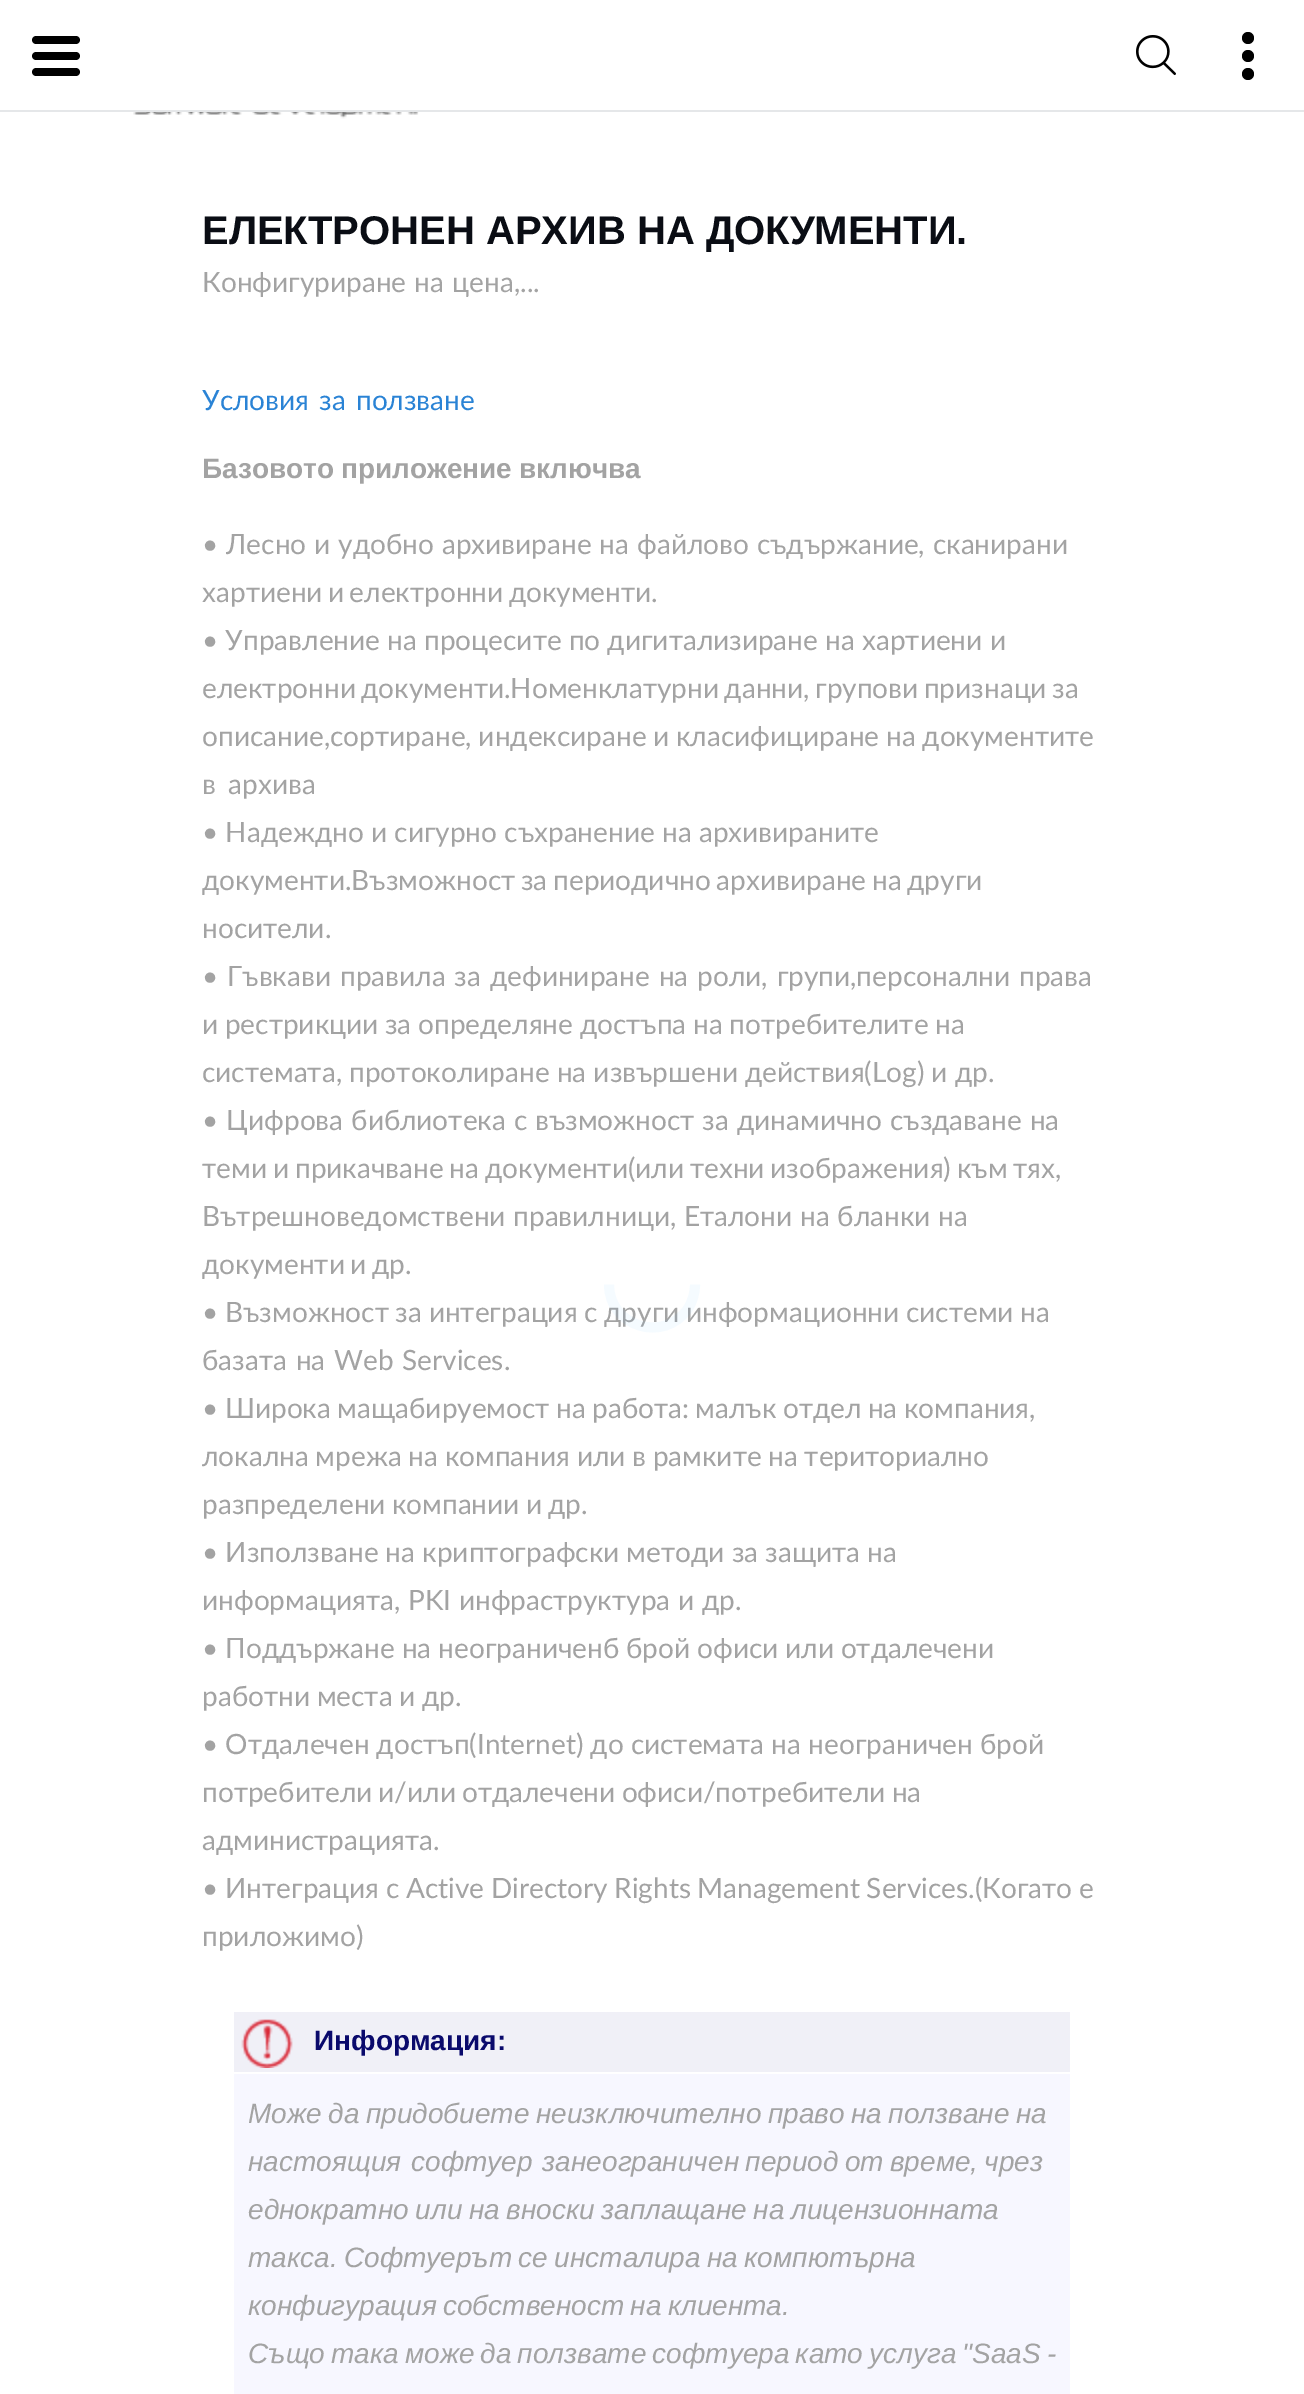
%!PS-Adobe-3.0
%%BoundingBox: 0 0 1304 2394
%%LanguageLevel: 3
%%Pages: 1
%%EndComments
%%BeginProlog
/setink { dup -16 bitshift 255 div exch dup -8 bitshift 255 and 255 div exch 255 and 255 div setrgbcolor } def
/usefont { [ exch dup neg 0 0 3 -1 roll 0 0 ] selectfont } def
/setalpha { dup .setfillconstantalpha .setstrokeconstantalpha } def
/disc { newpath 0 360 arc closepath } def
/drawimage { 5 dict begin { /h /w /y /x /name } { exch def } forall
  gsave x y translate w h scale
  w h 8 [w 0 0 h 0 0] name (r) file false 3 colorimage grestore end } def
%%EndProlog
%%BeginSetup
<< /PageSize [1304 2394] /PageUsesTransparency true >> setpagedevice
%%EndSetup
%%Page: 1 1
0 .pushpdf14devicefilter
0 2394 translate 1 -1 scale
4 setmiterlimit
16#FFFFFF setink
0 0 1304 2394 rectfill
(img1.raw) 1136 35 40 41 drawimage
16#000000 setink
1248 56 6 disc fill
1248 38 6 disc fill
1248 74 6 disc fill
(img2.raw) 133 112 286 7 drawimage
76 60 moveto 36 60 lineto 34 60 32 58 32 56 curveto 32 54 34 52 36 52 curveto 76 52 lineto 78 52 80 54 80 56 curveto 80 58 78 60 76 60 curveto closepath 76 76 moveto 36 76 lineto 34 76 32 74 32 72 curveto 32 70 34 68 36 68 curveto 76 68 lineto 78 68 80 70 80 72 curveto 80 74 78 76 76 76 curveto closepath 76 44 moveto 36 44 lineto 34 44 32 42 32 40 curveto 32 38 34 36 36 36 curveto 76 36 lineto 78 36 80 38 80 40 curveto 80 42 78 44 76 44 curveto closepath fill
16#E5E7E9 setink
0 110 1304 2 rectfill
/LiberationSans-Bold 40 usefont
16#0A0D14 setink
202 244 moveto (ЕЛЕКТРОНЕН АРХИВ НА ДОКУМЕНТИ.) show
/Lato-Regular 28 usefont
16#A3A3A3 setink
202 292 moveto 1 0 32 (Конфигуриране на цена,...) widthshow
16#2A83D5 setink
202 410 moveto 3 0 32 (Условия за ползване) widthshow
/LiberationSans-Bold 28 usefont
16#A3A3A3 setink
202 478 moveto -1 0 32 (Базовото приложение включва) widthshow
/Lato-Regular 28 usefont
202 554 moveto 0.75 0 32 (• Лесно и удобно архивиране на файлово съдържание, сканирани) widthshow
202 602 moveto -1.75 0 32 (хартиени и електронни документи.) widthshow
202 650 moveto (• Управление на процесите по дигитализиране на хартиени и) show
202 698 moveto -1.75 0 32 (електронни документи.Номенклатурни данни, групови признаци за) widthshow
202 746 moveto -0.5 0 32 (описание,сортиране, индексиране и класифициране на документите) widthshow
202 794 moveto 5 0 32 (в архива) widthshow
202 842 moveto (• Надеждно и сигурно съхранение на архивираните) show
202 890 moveto -1.5 0 32 (документи.Възможност за периодично архивиране на други) widthshow
202 938 moveto (носители.) show
202 986 moveto 1.75 0 32 (• Гъвкави правила за дефиниране на роли, групи,персонални права) widthshow
202 1034 moveto -0.5 0 32 (и рестрикции за определяне достъпа на потребителите на) widthshow
202 1082 moveto (системата, протоколиране на извършени действия\(Log\) и др.) show
202 1130 moveto 0.75 0 32 (• Цифрова библиотека с възможност за динамично създаване на) widthshow
202 1178 moveto -1.25 0 32 (теми и прикачване на документи\(или техни изображения\) към тях,) widthshow
202 1226 moveto 0.5 0 32 (Вътрешноведомствени правилници, Еталони на бланки на) widthshow
202 1274 moveto -1.75 0 32 (документи и др.) widthshow
202 1322 moveto -0.5 0 32 (• Възможност за интеграция с други информационни системи на) widthshow
202 1370 moveto 1.5 0 32 (базата на Web Services.) widthshow
202 1418 moveto -0.75 0 32 (• Широка мащабируемост на работа: малък отдел на компания,) widthshow
202 1466 moveto -0.5 0 32 (локална мрежа на компания или в рамките на териториално) widthshow
202 1514 moveto -1 0 32 (разпределени компании и др.) widthshow
202 1562 moveto (• Използване на криптографски методи за защита на) show
202 1610 moveto 0.5 0 32 (информацията, PKI инфраструктура и др.) widthshow
202 1658 moveto -0.25 0 32 (• Поддържане на неограниченб брой офиси или отдалечени) widthshow
202 1706 moveto -0.5 0 32 (работни места и др.) widthshow
202 1754 moveto (• Отдалечен достъп\(Internet\) до системата на неограничен брой) show
202 1802 moveto -1 0 32 (потребители и/или отдалечени офиси/потребители на) widthshow
202 1850 moveto (администрацията.) show
202 1898 moveto -0.5 0 32 (• Интеграция с Active Directory Rights Management Services.\(Когато е) widthshow
202 1946 moveto (приложимо\)) show
16#F0F0F7 setink
234 2012 836 60 rectfill
(img3.raw) 241 2019 52 49 drawimage
/LiberationSans-Bold 28 usefont
16#0A0A6C setink
314 2050 moveto (Информация:) show
16#F7F7FF setink
234 2074 836 320 rectfill
/LiberationSans-Italic 28 usefont
16#A3A3A3 setink
248 2123 moveto -1.25 0 32 (Може да придобиете неизключително право на ползване на) widthshow
248 2171 moveto 2 0 32 (настоящия софтуер за) widthshow
571 2171 moveto -1.5 0 32 (неограничен период от време, чрез) widthshow
248 2219 moveto -1.25 0 32 (еднократно или на вноски заплащане на лицензионната) widthshow
248 2267 moveto -1.5 0 32 (такса. Софтуерът се инсталира на компютърна) widthshow
248 2315 moveto -1.5 0 32 (конфигурация собственост на клиента.) widthshow
248 2363 moveto -1.75 0 32 (Също така може да ползвате софтуера като услуга "SaaS -) widthshow
0.04 setalpha
16#0094FF setink
10 setlinewidth
695 1284.5 moveto 695 1293 692.5 1301.5 688 1308.5 curveto 664.5 1343.5 609 1327 609 1284.5 curveto stroke
.poppdf14devicefilter showpage
%%EOF
